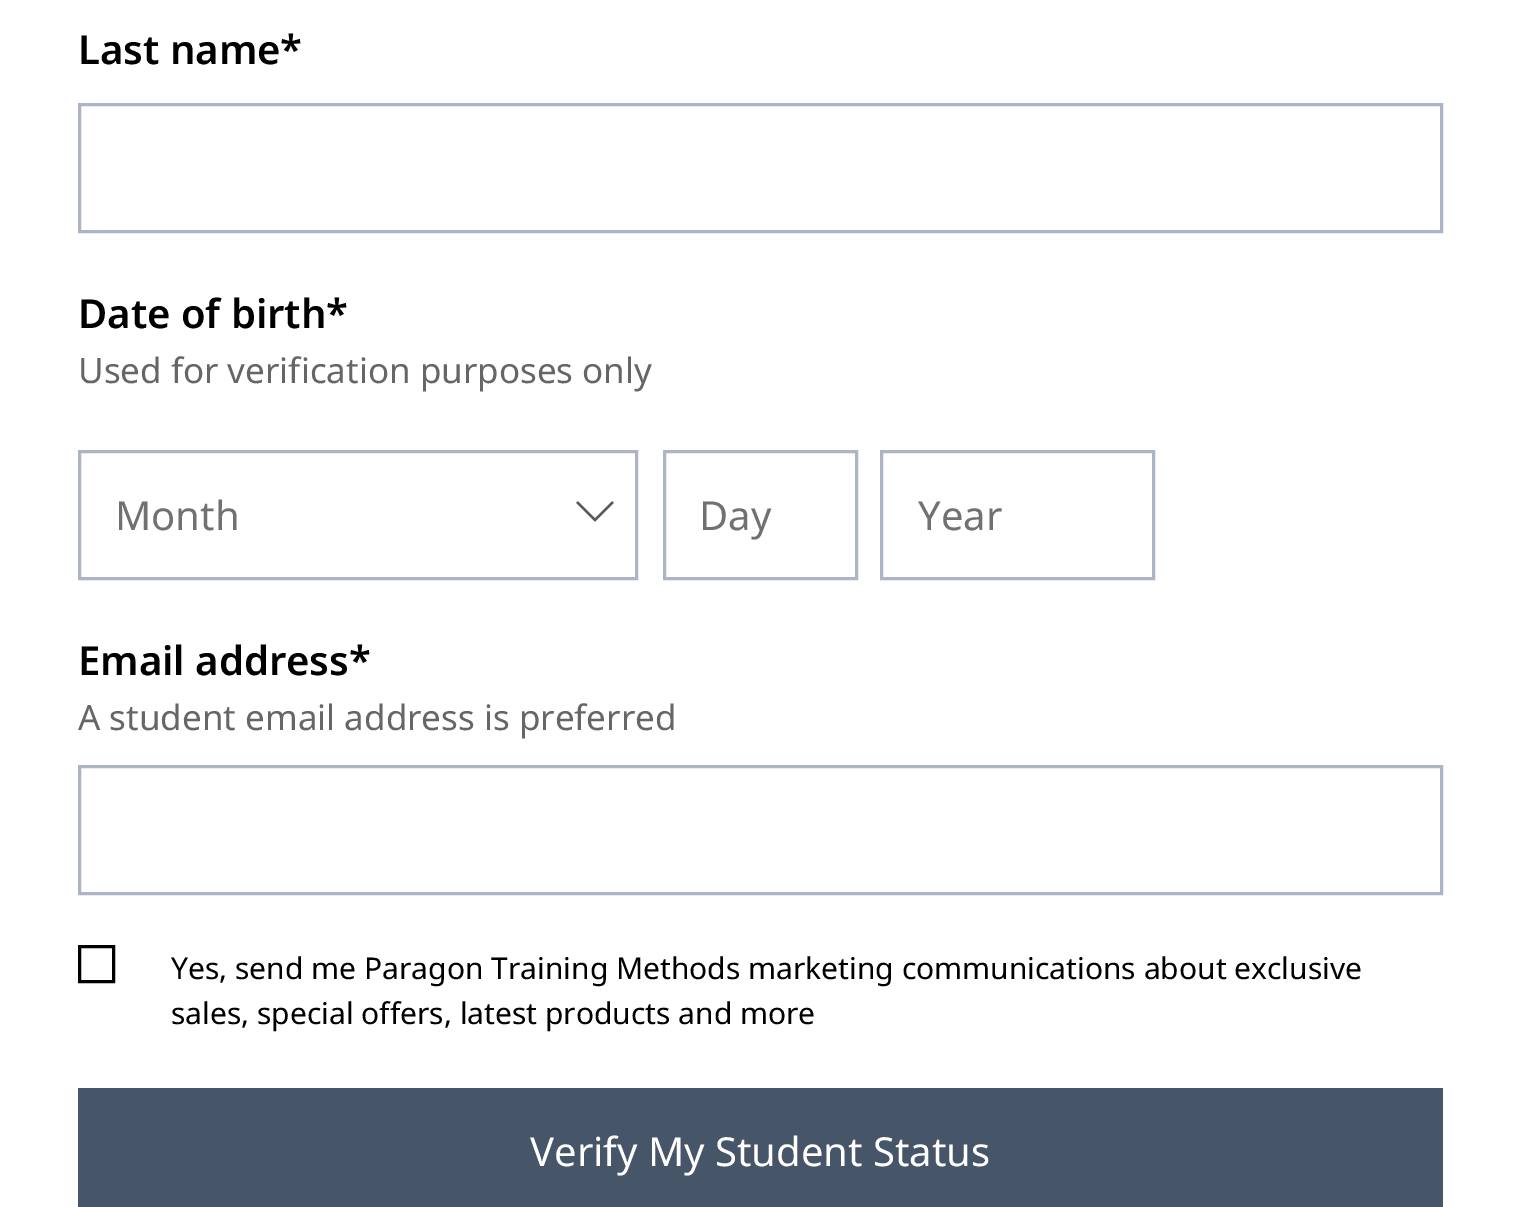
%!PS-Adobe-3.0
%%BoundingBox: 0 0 1519 1207
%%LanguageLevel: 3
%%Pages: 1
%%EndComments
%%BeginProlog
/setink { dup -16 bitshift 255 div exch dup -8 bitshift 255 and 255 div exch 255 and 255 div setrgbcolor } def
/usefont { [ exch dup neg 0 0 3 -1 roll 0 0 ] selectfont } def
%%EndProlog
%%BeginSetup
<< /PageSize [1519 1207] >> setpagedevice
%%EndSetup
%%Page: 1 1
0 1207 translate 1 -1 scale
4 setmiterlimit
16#FFFFFF setink
0 0 1519 1207 rectfill
/NotoSans-SemiBold 40 usefont
16#000000 setink
78 64 moveto (Last name*) show
16#ACB4C6 setink
3 setlinewidth
79.5 104.5 1362 127 rectstroke
16#000000 setink
78 328 moveto (Date of birth*) show
/NotoSans-Regular 35 usefont
16#666666 setink
78 383 moveto (Used for verification purposes only) show
16#ACB4C6 setink
79.5 451.5 557 127 rectstroke
/NotoSans-Regular 40 usefont
16#717171 setink
115 530 moveto (Month) show
16#5A5A5A setink
2.2 setlinewidth
577 502 moveto 595 520 lineto 613 502 lineto stroke
16#ACB4C6 setink
3 setlinewidth
664.5 451.5 192 127 rectstroke
16#717171 setink
699 530 moveto (Day) show
16#ACB4C6 setink
881.5 451.5 272 127 rectstroke
16#717171 setink
918 530 moveto (Year) show
/NotoSans-SemiBold 40 usefont
16#000000 setink
78 675 moveto (Email address*) show
/NotoSans-Regular 35 usefont
16#666666 setink
78 730 moveto (A student email address is preferred) show
16#ACB4C6 setink
79.5 766.5 1362 127 rectstroke
16#000000 setink
79.5 946.5 34 35 rectstroke
/NotoSans-Regular 30 usefont
171 979 moveto (Yes, send me Paragon Training Methods marketing communications about exclusive) show
171 1024 moveto (sales, special offers, latest products and more) show
16#475569 setink
78 1088 1365 119 rectfill
/NotoSans-Regular 40 usefont
16#FFFFFF setink
530 1166 moveto (Verify My Student Status) show
showpage
%%EOF
